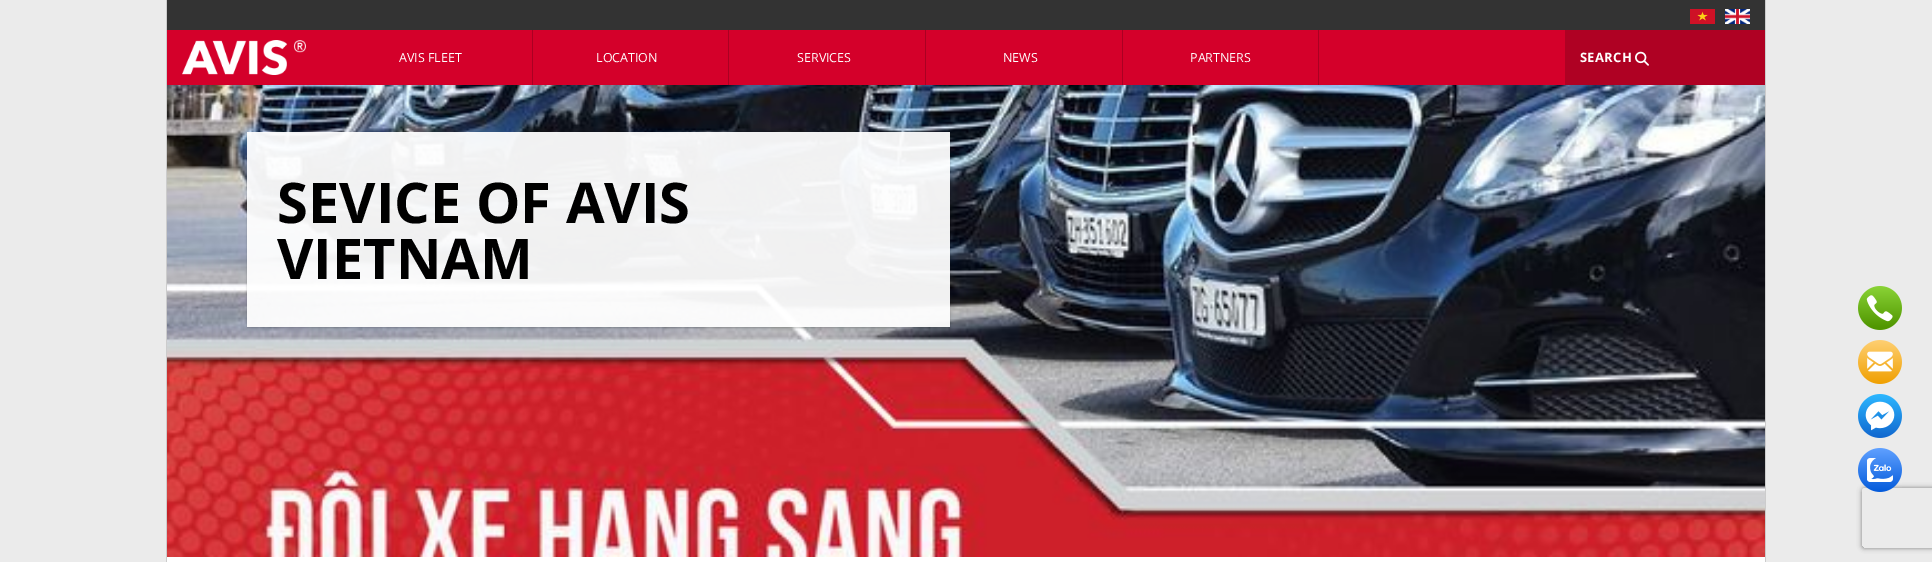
%!PS-Adobe-3.0
%%BoundingBox: 0 0 1932 562
%%LanguageLevel: 3
%%Pages: 1
%%EndComments
%%BeginProlog
/setink { dup -16 bitshift 255 div exch dup -8 bitshift 255 and 255 div exch 255 and 255 div setrgbcolor } def
/usefont { [ exch dup neg 0 0 3 -1 roll 0 0 ] selectfont } def
/setalpha { dup .setfillconstantalpha .setstrokeconstantalpha } def
/rrect { 5 dict begin { /r /h /w /y /x } { exch def } forall
  x r add y moveto x w add y 2 copy h add r arct x w add y h add x 1 index r arct
  x y h add x y r arct x y 2 copy exch w add exch r arct closepath end } def
/softshadow { 12 dict begin { /a /b /q /h /w /y /x } { exch def } forall gsave /was 0 def
  9 -2 -9 { dup b mul 4 div /e exch def 1 sub .425 mul 2.718 exch exp 1 add a .99 .min exch div /now exch def
    1 1 now sub 1 was sub div sub setalpha /was now def
    w h .min e 2 mul add 0 gt { x e sub y e sub w e 2 mul add h e 2 mul add
      q e add b .6 mul add w h .min 2 div e add .min 0 .max rrect fill } if } for grestore end } def
/drawimage { 5 dict begin { /h /w /y /x /name } { exch def } forall
  gsave x y translate w h scale
  w h 8 [w 0 0 h 0 0] name (r) file false 3 colorimage grestore end } def
%%EndProlog
%%BeginSetup
<< /PageSize [1932 562] /PageUsesTransparency true >> setpagedevice
%%EndSetup
%%Page: 1 1
0 .pushpdf14devicefilter
0 562 translate 1 -1 scale
4 setmiterlimit
16#EBEBEB setink
0 0 1932 562 rectfill
[
    [1765 0 1 562 16#CCCCCC]
    [166 0 1 562 16#CCCCCC]
    [167 0 1598 30 16#333333]
] { aload pop setink rectfill } forall
(img1.raw) 1690 9 25 15 drawimage
(img2.raw) 1725 9 25 15 drawimage
16#D4002A setink
167 30 1398 55 rectfill
(img3.raw) 182 40 124 35 drawimage
16#AA0022 setink
532 30 1 55 rectfill
/OpenSans-Regular 12.5 usefont
16#FFFFFF setink
399 62 moveto (AVIS FLEET) show
16#AA0022 setink
728 30 1 55 rectfill
16#FFFFFF setink
596 62 moveto (LOCATION) show
16#AA0022 setink
925 30 1 55 rectfill
16#FFFFFF setink
797 62 moveto (SERVICES) show
16#AA0022 setink
1122 30 1 55 rectfill
16#FFFFFF setink
1003 62 moveto (NEWS) show
16#AA0022 setink
1318 30 1 55 rectfill
16#FFFFFF setink
1190 62 moveto (PARTNERS) show
16#AF0123 setink
1565 30 200 55 rectfill
/OpenSans-Bold 13 usefont
16#FFFFFF setink
1580 62 moveto 0.25 0 (SEARCH) ashow
(img4.raw) 1635 51 14 15 drawimage
(img5.raw) 167 85 1598 472 drawimage
gsave
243 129 moveto 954 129 lineto 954 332 lineto 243 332 lineto closepath 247 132 moveto 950 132 lineto 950 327 lineto 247 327 lineto closepath eoclip newpath
16#000000 setink
247 133 703 195 0 1 0.24 softshadow
grestore
0.94 setalpha
247 132 703 195 rectfill
/OpenSans-Bold 56 usefont
1 setalpha
16#000000 setink
277 223 moveto (SEVICE OF AVIS) show
277 279 moveto (VIETNAM) show
16#FFFFFF setink
167 557 1598 5 rectfill
(img6.raw) 1858 286 44 44 drawimage
(img7.raw) 1858 340 44 44 drawimage
(img8.raw) 1858 394 44 44 drawimage
gsave
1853 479 moveto 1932 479 lineto 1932 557 lineto 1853 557 lineto closepath 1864 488 moveto 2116 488 lineto 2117 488 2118 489 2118 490 curveto 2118 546 lineto 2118 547 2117 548 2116 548 curveto 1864 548 lineto 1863 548 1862 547 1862 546 curveto 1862 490 lineto 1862 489 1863 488 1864 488 curveto closepath eoclip newpath
16#808080 setink
1862 488 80 60 2 2.5 1 softshadow
grestore
(img9.raw) 1858 448 44 44 drawimage
.poppdf14devicefilter showpage
%%EOF
